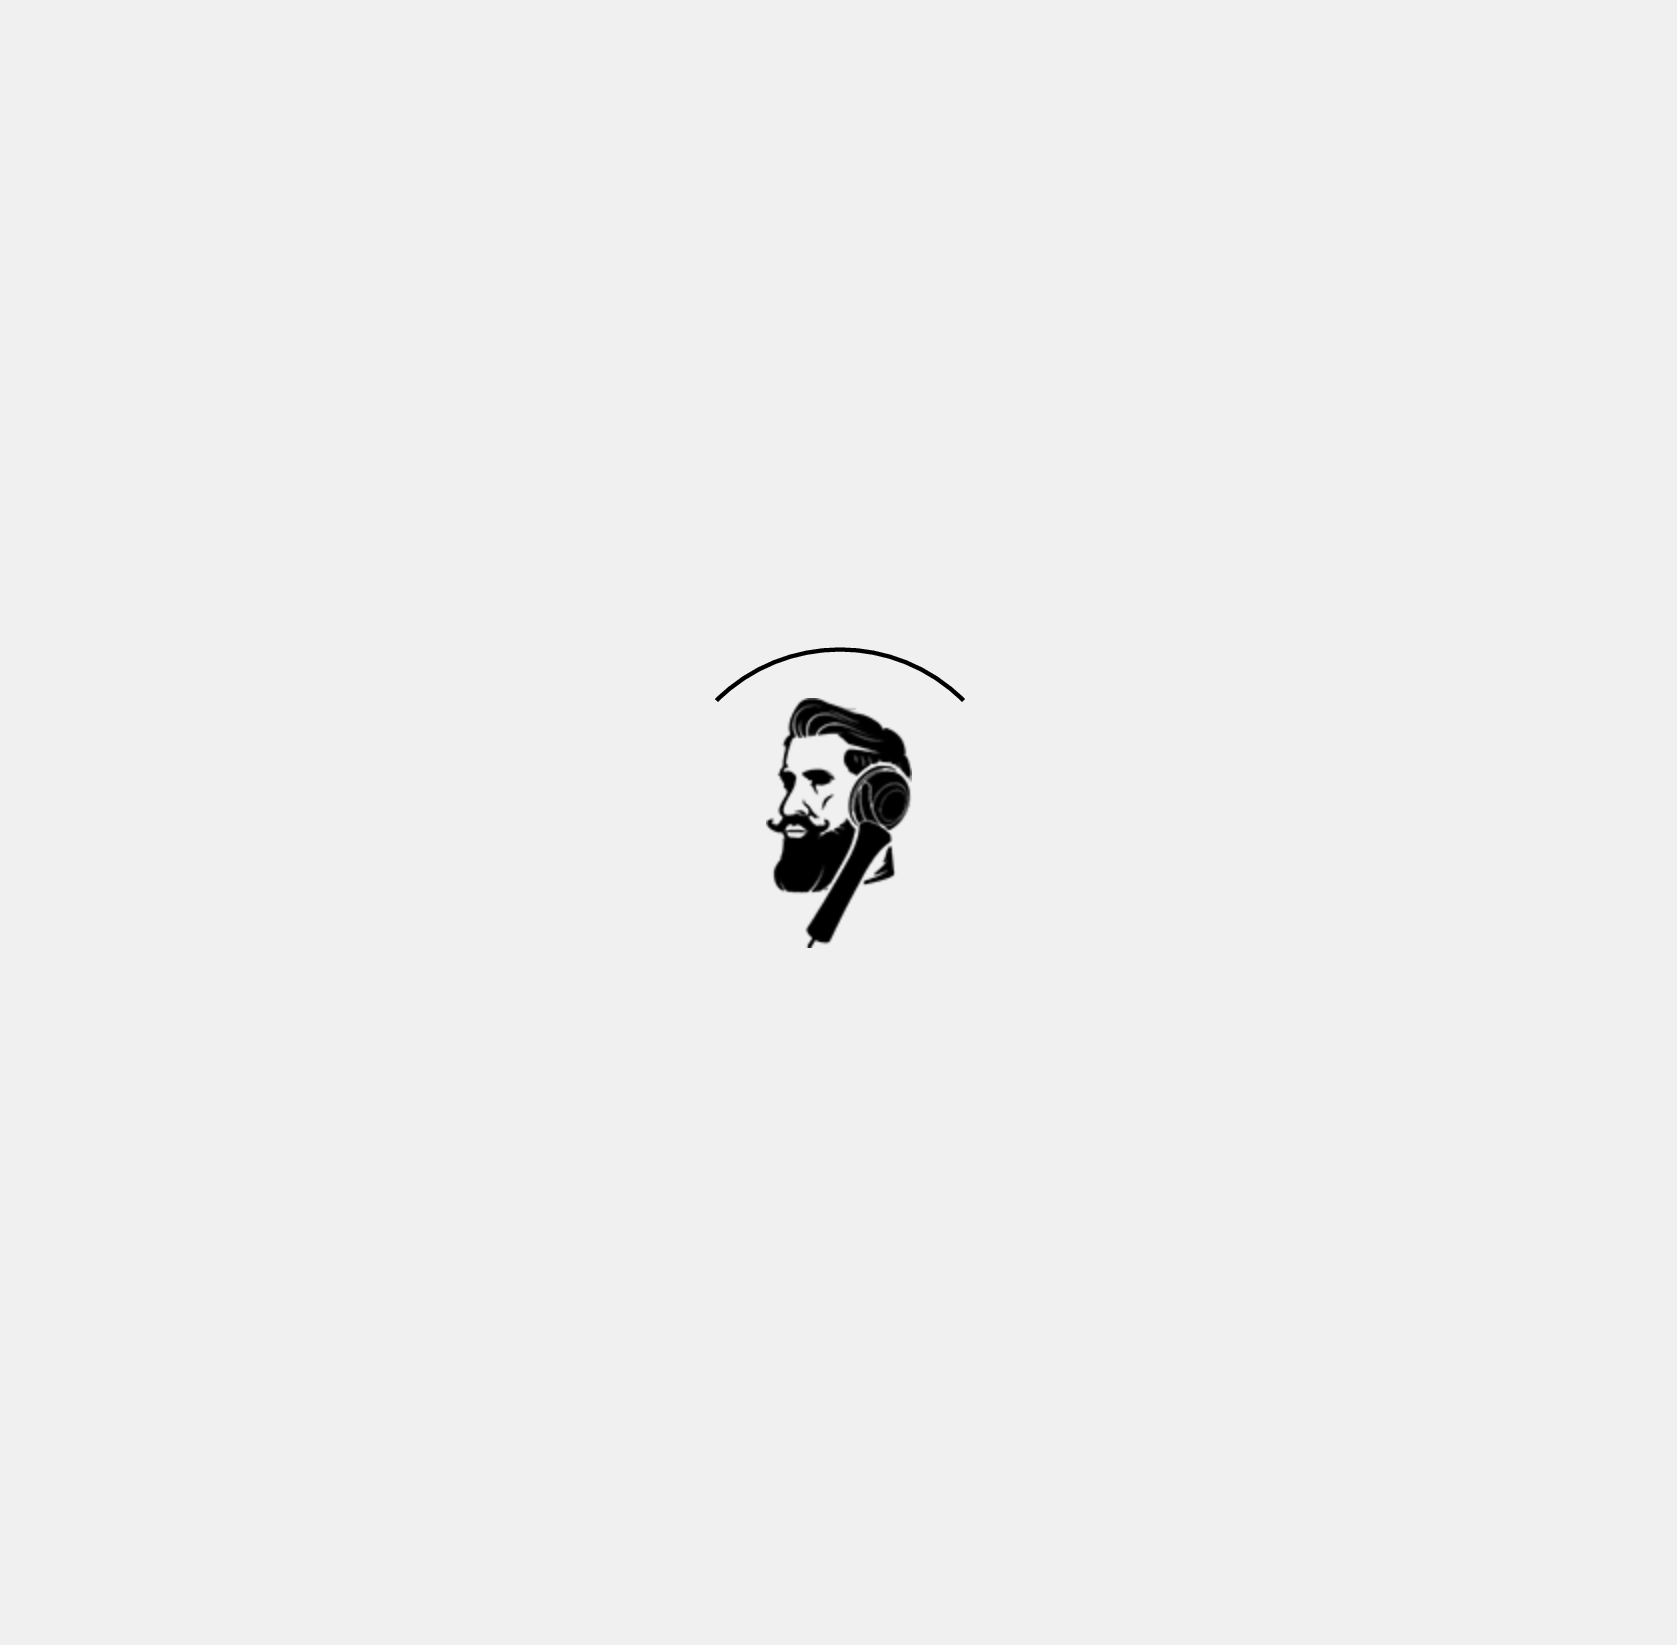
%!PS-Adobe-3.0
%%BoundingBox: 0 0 1677 1645
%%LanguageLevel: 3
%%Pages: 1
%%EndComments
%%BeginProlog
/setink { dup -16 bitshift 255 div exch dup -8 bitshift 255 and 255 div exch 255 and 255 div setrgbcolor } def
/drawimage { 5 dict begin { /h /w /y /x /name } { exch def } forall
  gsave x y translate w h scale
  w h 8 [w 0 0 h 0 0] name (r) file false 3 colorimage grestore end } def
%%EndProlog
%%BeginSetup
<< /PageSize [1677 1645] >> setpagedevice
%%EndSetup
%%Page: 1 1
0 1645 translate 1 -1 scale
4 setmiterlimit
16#F0F0F0 setink
0 0 1677 1645 rectfill
16#000000 setink
4 setlinewidth
716.5 700.5 moveto 784.5 632.5 895.5 632.5 963.5 700.5 curveto stroke
(img1.raw) 766 698 146 250 drawimage
showpage
%%EOF
